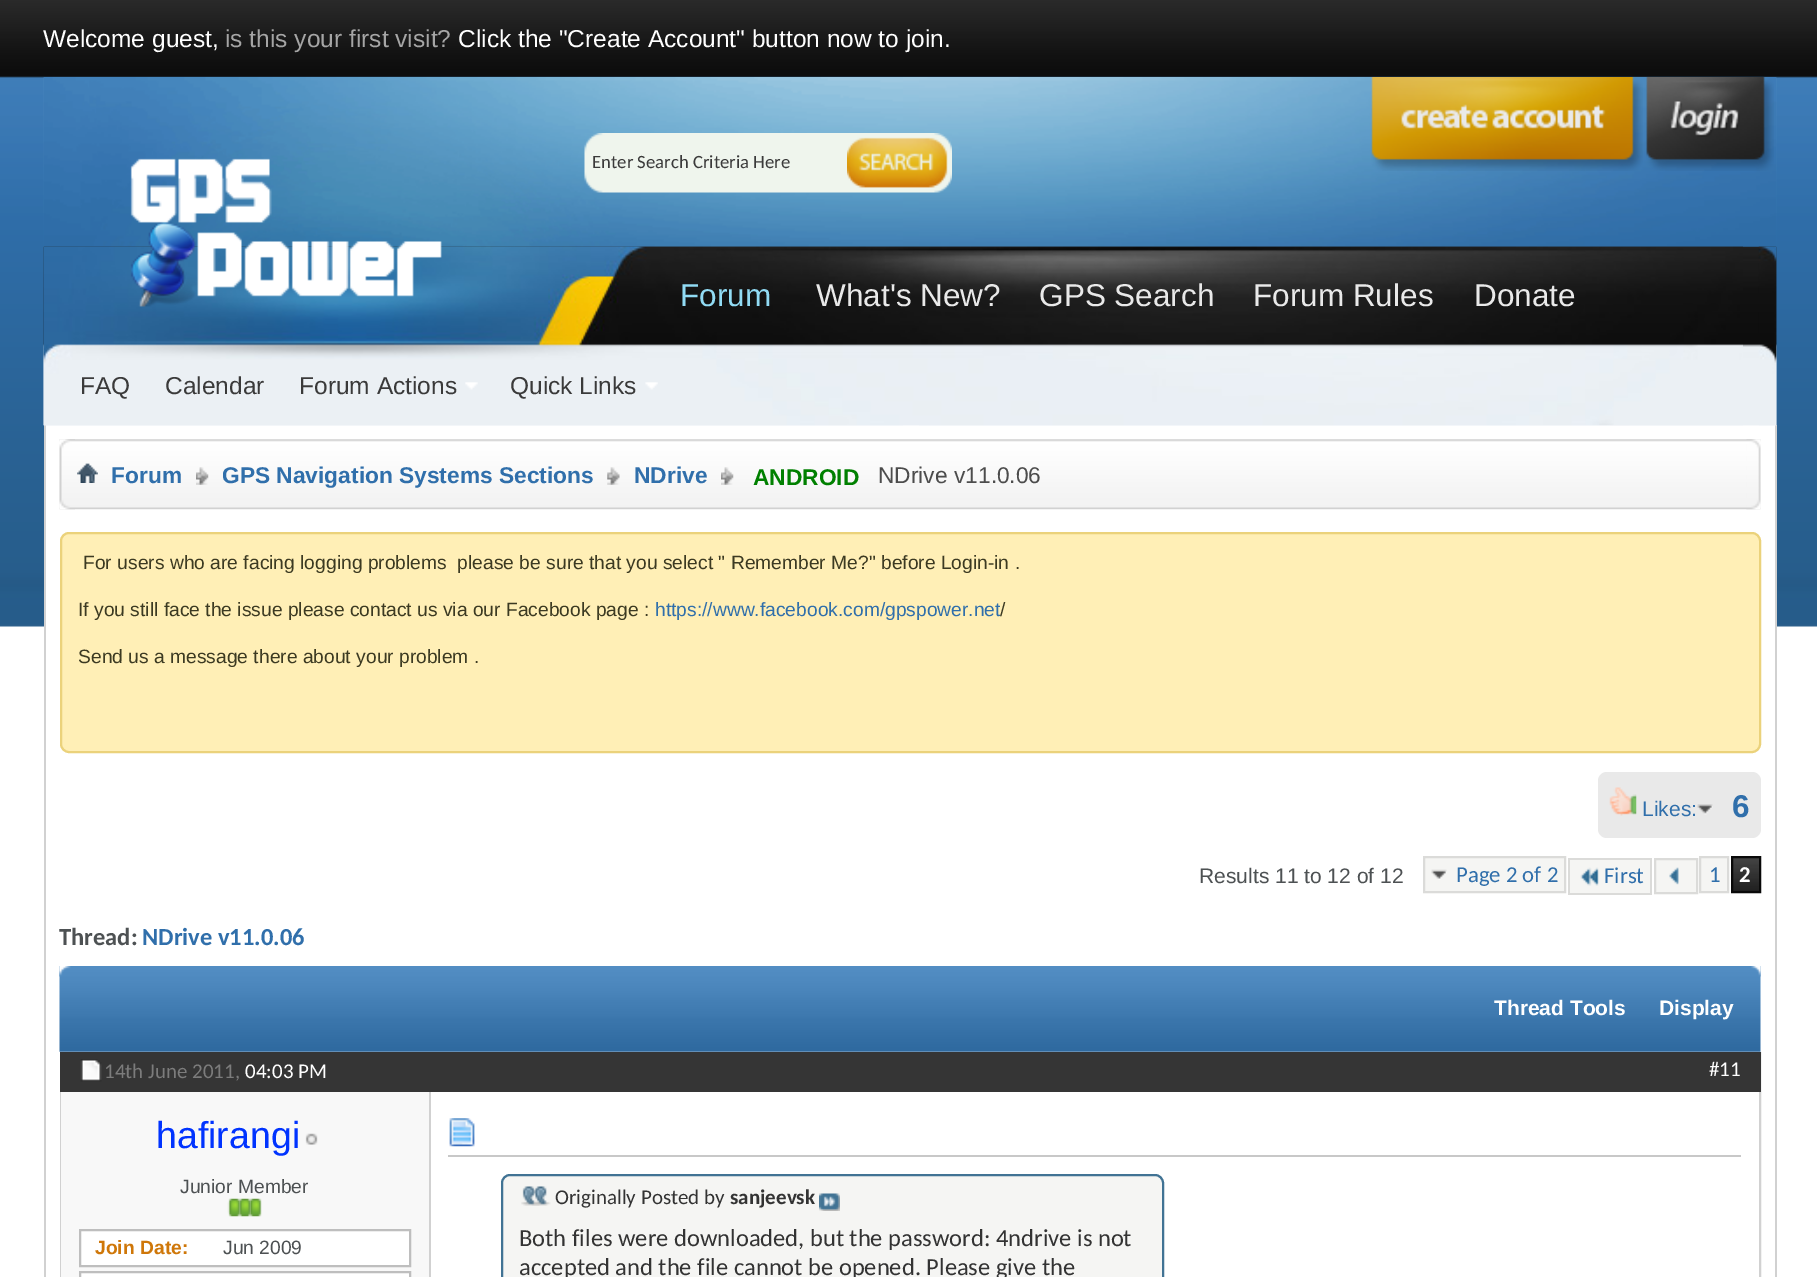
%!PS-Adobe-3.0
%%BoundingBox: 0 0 1817 1277
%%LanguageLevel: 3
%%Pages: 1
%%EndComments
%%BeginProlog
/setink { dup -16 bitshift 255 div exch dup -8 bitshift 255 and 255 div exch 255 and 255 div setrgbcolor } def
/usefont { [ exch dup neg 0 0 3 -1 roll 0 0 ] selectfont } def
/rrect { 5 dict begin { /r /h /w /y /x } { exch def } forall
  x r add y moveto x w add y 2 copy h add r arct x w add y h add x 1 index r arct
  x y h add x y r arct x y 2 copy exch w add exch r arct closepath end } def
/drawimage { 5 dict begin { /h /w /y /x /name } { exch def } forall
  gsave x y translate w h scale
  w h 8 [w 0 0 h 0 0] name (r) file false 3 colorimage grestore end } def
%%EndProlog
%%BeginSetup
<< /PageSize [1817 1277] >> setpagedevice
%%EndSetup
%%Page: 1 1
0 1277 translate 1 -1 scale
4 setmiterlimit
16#FFFFFF setink
0 0 1817 1277 rectfill
(img1.raw) 0 0 1817 627 drawimage
/LiberationSans-Regular 24.5 usefont
43 47 moveto (Welcome guest,) show
16#A5A5A5 setink
225 47 moveto (is this your first visit?) show
16#FFFFFF setink
458 47 moveto (Click the "Create Account" button now to join.) show
(img2.raw) 43 77 1734 348 drawimage
46 425 1729 202 rectfill
16#D1D1D1 setink
44 425 2 852 rectfill
(img3.raw) 43 77 860 349 drawimage
1775 425 2 852 rectfill
(img4.raw) 919 77 858 349 drawimage
(img10.raw) 43 246 1734 180 drawimage
(img11.raw) 43 246 1700 180 drawimage
(img5.raw) 130 158 312 149 drawimage
(img6.raw) 584 133 263 60 drawimage
/Carlito-Regular 18.75 usefont
16#3A3A3A setink
592 168 moveto (Enter Search Criteria Here) show
(img7.raw) 847 133 105 60 drawimage
(img8.raw) 1371 77 272 94 drawimage
(img9.raw) 1646 77 128 94 drawimage
(img12.raw) 1758 246 19 180 drawimage
/LiberationSans-Regular 31.5 usefont
16#91DBF4 setink
680 306 moveto (Forum) show
16#E9E9E9 setink
[
    [(What's New?) 816 306]
    [(GPS Search) 1039 306]
    [(Forum Rules) 1253 306]
    [(Donate) 1474 306]
] { aload pop moveto show } forall
/LiberationSans-Regular 24.5 usefont
16#3A3A3A setink
[
    [(FAQ) 80 394]
    [(Calendar) 165 394]
    [(Forum Actions) 299 394]
] { aload pop moveto show } forall
(img13.raw) 465 382 13 8 drawimage
510 394 moveto (Quick Links) show
(img14.raw) 645 382 13 8 drawimage
(img15.raw) 59 439 1702 71 drawimage
(img16.raw) 59 439 16 71 drawimage
(img17.raw) 1746 439 15 71 drawimage
(img18.raw) 77 463 21 20 drawimage
(img19.raw) 196 467 13 18 drawimage
/LiberationSans-Bold 22.75 usefont
16#306FAB setink
111 483 moveto (Forum) show
(img20.raw) 607 467 13 18 drawimage
222 483 moveto (GPS Navigation Systems Sections) show
(img19.raw) 721 467 13 18 drawimage
634 483 moveto (NDrive) show
16#008000 setink
753 485 moveto (ANDROID) show
/LiberationSans-Regular 22.75 usefont
16#4C4C4C setink
878 483 moveto (NDrive v11.0.06) show
16#FFEFB6 setink
61 533 1699 219 8 rrect gsave fill grestore
16#EBD27B setink
2 setlinewidth
stroke
/LiberationSans-Regular 19.25 usefont
16#3C3A22 setink
83 569 moveto (For users who are facing logging problems  please be sure that you select " Remember Me?" before Login-in .) show
78 616 moveto (If you still face the issue please contact us via our Facebook page :) show
16#306FAB setink
655 616 moveto (https://www.facebook.com/gpspower.net) show
16#3C3A22 setink
1000 616 moveto (/) show
78 663 moveto (Send us a message there about your problem .) show
16#E9E9E9 setink
1598 772 163 66 9 rrect fill
(img21.raw) 1697 804 16 11 drawimage
(img22.raw) 1609 787 28 29 drawimage
/LiberationSans-Regular 21 usefont
16#306FAB setink
1642 816 moveto (Likes:) show
/LiberationSans-Bold 31.5 usefont
1732 817 moveto (6) show
/LiberationSans-Regular 21 usefont
16#4D5153 setink
1199 883 moveto (Results 11 to 12 of 12) show
16#F5F5F3 setink
1425 858 139 33 rectfill
(img23.raw) 1431 869 16 11 drawimage
16#DBDBD9 setink
1424 857 141 35 rectstroke
/Carlito-Regular 22.75 usefont
16#306FAB setink
1456 882 moveto (Page 2 of 2) show
16#F5F5F3 setink
1570 860 80 33 rectfill
(img24.raw) 1580 867 19 19 drawimage
16#306FAB setink
1604 883 moveto (First) show
[
    [1568 858 84 2 16#DBDBD9]
    [1568 893 35 2 16#DBDBD9]
    [1568 858 2 36 16#DBDBD9]
    [1650 858 2 36 16#DBDBD9]
    [1603 893 49 2 16#DBDBD9]
] { aload pop setink rectfill } forall
16#F5F5F3 setink
1655 859 moveto 1697 859 lineto 1697 893 lineto 1655 893 lineto closepath gsave fill grestore
16#DBDBD9 setink
stroke
(img25.raw) 1669 867 10 18 drawimage
16#F5F5F3 setink
1700 857 moveto 1728 857 lineto 1728 892 lineto 1700 892 lineto closepath gsave fill grestore
16#DBDBD9 setink
stroke
16#306FAB setink
1709 882 moveto (1) show
16#181818 setink
1733 858 26 33 rectfill
(img26.raw) 1733 858 26 33 drawimage
16#090909 setink
1732 857 28 35 rectstroke
/Carlito-Bold 22.75 usefont
16#FFFFFF setink
1739 882 moveto (2) show
/Carlito-Bold 24.5 usefont
16#4D5153 setink
59 945 moveto (Thread:) show
16#306FAB setink
142 945 moveto (NDrive v11.0.06) show
(img27.raw) 59 966 1702 86 drawimage
(img28.raw) 59 966 12 11 drawimage
(img29.raw) 1751 966 10 11 drawimage
/LiberationSans-Bold 21 usefont
16#FFFFFF setink
1494 1015 moveto (Thread Tools) show
1659 1015 moveto (Display) show
16#D1D1D1 setink
61 1053 1699 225 rectstroke
16#353535 setink
60 1052 1701 40 rectfill
(img30.raw) 80 1059 22 23 drawimage
/Carlito-Regular 21 usefont
16#7C7C7C setink
104 1078 moveto (14th June 2011,) show
16#FFFFFF setink
245 1078 moveto (04:03 PM) show
1709 1076 moveto (#11) show
16#F8F8F8 setink
61 1092 368 185 rectfill
/LiberationSans-Regular 37.5 usefont
16#0033FF setink
156 1148 moveto (hafirangi) show
(img31.raw) 305 1133 13 12 drawimage
/LiberationSans-Regular 19.25 usefont
16#4D5153 setink
180 1193 moveto (Junior Member) show
(img32.raw) 227 1198 14 19 drawimage
(img33.raw) 239 1198 12 19 drawimage
(img34.raw) 249 1198 13 19 drawimage
16#FFFFFF setink
80 1230 moveto 410 1230 lineto 410 1266 lineto 80 1266 lineto closepath gsave fill grestore
16#BEBEBE setink
stroke
/LiberationSans-Bold 19.25 usefont
16#CF7709 setink
95 1254 moveto (Join Date:) show
/LiberationSans-Regular 19.25 usefont
16#4D5153 setink
223 1254 moveto (Jun 2009) show
16#FFFFFF setink
80 1272 moveto 410 1272 lineto 410 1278 lineto 80 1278 lineto closepath gsave fill grestore
16#BEBEBE setink
stroke
16#D1D1D1 setink
429 1092 2 185 rectfill
16#C8C8C8 setink
448 1155 1293 2 rectfill
(img35.raw) 449 1118 26 29 drawimage
16#F5F5F3 setink
502 1175 661 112 8 rrect gsave fill grestore
16#417394 setink
stroke
(img36.raw) 521 1186 30 20 drawimage
/Carlito-Regular 21 usefont
16#333333 setink
555 1204 moveto (Originally Posted by) show
/Carlito-Bold 21 usefont
730 1204 moveto (sanjeevsk) show
(img37.raw) 819 1193 21 18 drawimage
/Carlito-Regular 24.5 usefont
519 1246 moveto (Both files were downloaded, but the password: 4ndrive is not) show
519 1275 moveto (accepted and the file cannot be opened. Please give the) show
showpage
%%EOF
